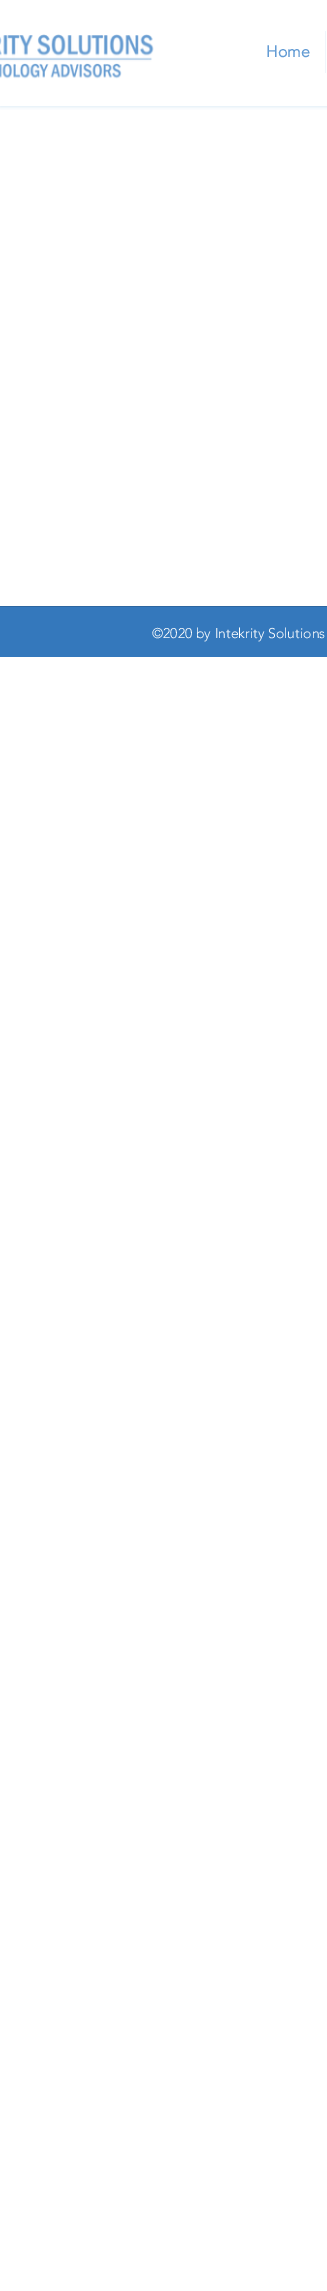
%!PS-Adobe-3.0
%%BoundingBox: 0 0 327 2291
%%LanguageLevel: 3
%%Pages: 1
%%EndComments
%%BeginProlog
/setink { dup -16 bitshift 255 div exch dup -8 bitshift 255 and 255 div exch 255 and 255 div setrgbcolor } def
/usefont { [ exch dup neg 0 0 3 -1 roll 0 0 ] selectfont } def
/setalpha { dup .setfillconstantalpha .setstrokeconstantalpha } def
/rrect { 5 dict begin { /r /h /w /y /x } { exch def } forall
  x r add y moveto x w add y 2 copy h add r arct x w add y h add x 1 index r arct
  x y h add x y r arct x y 2 copy exch w add exch r arct closepath end } def
/softshadow { 12 dict begin { /a /b /q /h /w /y /x } { exch def } forall gsave /was 0 def
  9 -2 -9 { dup b mul 4 div /e exch def 1 sub .425 mul 2.718 exch exp 1 add a .99 .min exch div /now exch def
    1 1 now sub 1 was sub div sub setalpha /was now def
    w h .min e 2 mul add 0 gt { x e sub y e sub w e 2 mul add h e 2 mul add
      q e add b .6 mul add w h .min 2 div e add .min 0 .max rrect fill } if } for grestore end } def
/drawimage { 5 dict begin { /h /w /y /x /name } { exch def } forall
  gsave x y translate w h scale
  w h 8 [w 0 0 h 0 0] name (r) file false 3 colorimage grestore end } def
%%EndProlog
%%BeginSetup
<< /PageSize [327 2291] /PageUsesTransparency true >> setpagedevice
%%EndSetup
%%Page: 1 1
0 .pushpdf14devicefilter
0 2291 translate 1 -1 scale
4 setmiterlimit
16#FFFFFF setink
0 0 327 2291 rectfill
gsave
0 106 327 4 rectclip
16#649CD4 setink
0 0 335 106 0 2.5 0.3 softshadow
grestore
(img1.raw) 0 34 154 45 drawimage
/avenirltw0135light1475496-Bold 16 usefont
16#649CD4 setink
266 57 moveto (Home) show
[
    [325 31 1 42 16#F0F5FB]
    [0 607 327 50 16#3478BC]
    [0 606 327 1 16#2C66A0]
] { aload pop setink rectfill } forall
/avenirltw0135light1475496-Light 14 usefont
16#FFFFFF setink
152 638 moveto (©2020 by Intekrity Solutions) show
.poppdf14devicefilter showpage
%%EOF
